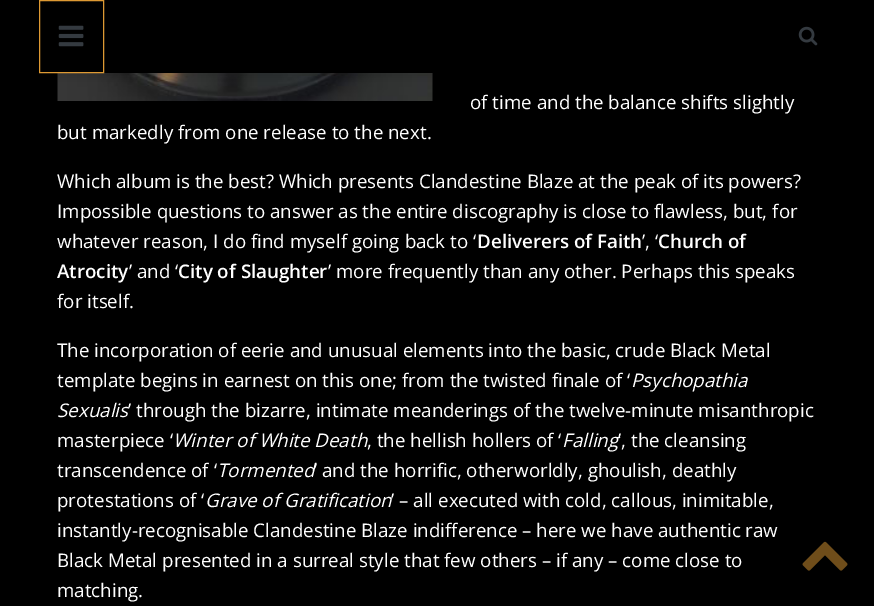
%!PS-Adobe-3.0
%%BoundingBox: 0 0 874 606
%%LanguageLevel: 3
%%Pages: 1
%%EndComments
%%BeginProlog
/setink { dup -16 bitshift 255 div exch dup -8 bitshift 255 and 255 div exch 255 and 255 div setrgbcolor } def
/usefont { [ exch dup neg 0 0 3 -1 roll 0 0 ] selectfont } def
/setalpha { dup .setfillconstantalpha .setstrokeconstantalpha } def
/rrect { 5 dict begin { /r /h /w /y /x } { exch def } forall
  x r add y moveto x w add y 2 copy h add r arct x w add y h add x 1 index r arct
  x y h add x y r arct x y 2 copy exch w add exch r arct closepath end } def
/softshadow { 12 dict begin { /a /b /q /h /w /y /x } { exch def } forall gsave /was 0 def
  9 -2 -9 { dup b mul 4 div /e exch def 1 sub .425 mul 2.718 exch exp 1 add a .99 .min exch div /now exch def
    1 1 now sub 1 was sub div sub setalpha /was now def
    w h .min e 2 mul add 0 gt { x e sub y e sub w e 2 mul add h e 2 mul add
      q e add b .6 mul add w h .min 2 div e add .min 0 .max rrect fill } if } for grestore end } def
/drawimage { 5 dict begin { /h /w /y /x /name } { exch def } forall
  gsave x y translate w h scale
  w h 8 [w 0 0 h 0 0] name (r) file false 3 colorimage grestore end } def
%%EndProlog
%%BeginSetup
<< /PageSize [874 606] /PageUsesTransparency true >> setpagedevice
%%EndSetup
%%Page: 1 1
0 .pushpdf14devicefilter
0 606 translate 1 -1 scale
4 setmiterlimit
16#000000 setink
0 0 874 606 rectfill
(img3.raw) 57 73 376 28 drawimage
14 6 849 73 0 4 0.1 softshadow
16#DD9933 setink
39.5 0.5 64 72 rectstroke
(img1.raw) 58 25 26 22 drawimage
(img2.raw) 798 26 20 20 drawimage
/OpenSans-Regular 18.75 usefont
16#FFFFFF setink
[
    [(of time and the balance shifts slightly) 470 109]
    [(but markedly from one release to the next.) 57 139]
    [(Which album is the best? Which presents Clandestine Blaze at the peak of its powers?) 57 188]
    [(Impossible questions to answer as the entire discography is close to flawless, but, for) 57 218]
    [(whatever reason, I do find myself going back to ‘) 57 248]
] { aload pop moveto show } forall
/OpenSans-SemiBold 18.75 usefont
477 248 moveto (Deliverers of Faith) show
/OpenSans-Regular 18.75 usefont
642 248 moveto (’, ‘) show
/OpenSans-SemiBold 18.75 usefont
658 248 moveto (Church of) show
57 278 moveto (Atrocity) show
/OpenSans-Regular 18.75 usefont
129 278 moveto (’ and ‘) show
/OpenSans-SemiBold 18.75 usefont
178 278 moveto (City of Slaughter) show
/OpenSans-Regular 18.75 usefont
[
    [(’ more frequently than any other. Perhaps this speaks) 328 278]
    [(for itself.) 57 308]
    [(The incorporation of eerie and unusual elements into the basic, crude Black Metal) 57 357]
    [(template begins in earnest on this one; from the twisted finale of ‘) 57 387]
] { aload pop moveto show } forall
/OpenSans-Italic 18.75 usefont
631 387 moveto (Psychopathia) show
57 417 moveto (Sexualis) show
/OpenSans-Regular 18.75 usefont
128 417 moveto (’ through the bizarre, intimate meanderings of the twelve-minute misanthropic) show
57 447 moveto (masterpiece ‘) show
/OpenSans-Italic 18.75 usefont
173 447 moveto (Winter of White Death) show
/OpenSans-Regular 18.75 usefont
367 447 moveto (, the hellish hollers of ‘) show
/OpenSans-Italic 18.75 usefont
562 447 moveto (Falling) show
/OpenSans-Regular 18.75 usefont
618 447 moveto (’, the cleansing) show
57 477 moveto (transcendence of ‘) show
/OpenSans-Italic 18.75 usefont
217 477 moveto (Tormented) show
/OpenSans-Regular 18.75 usefont
314 477 moveto (’ and the horrific, otherworldly, ghoulish, deathly) show
57 507 moveto (protestations of ‘) show
/OpenSans-Italic 18.75 usefont
205 507 moveto (Grave of Gratification) show
/OpenSans-Regular 18.75 usefont
[
    [(’ – all executed with cold, callous, inimitable,) 391 507]
    [(instantly-recognisable Clandestine Blaze indifference – here we have authentic raw) 57 537]
    [(Black Metal presented in a surreal style that few others – if any – come close to) 57 567]
    [(matching.) 57 597]
] { aload pop moveto show } forall
(img4.raw) 802 541 46 30 drawimage
.poppdf14devicefilter showpage
%%EOF
